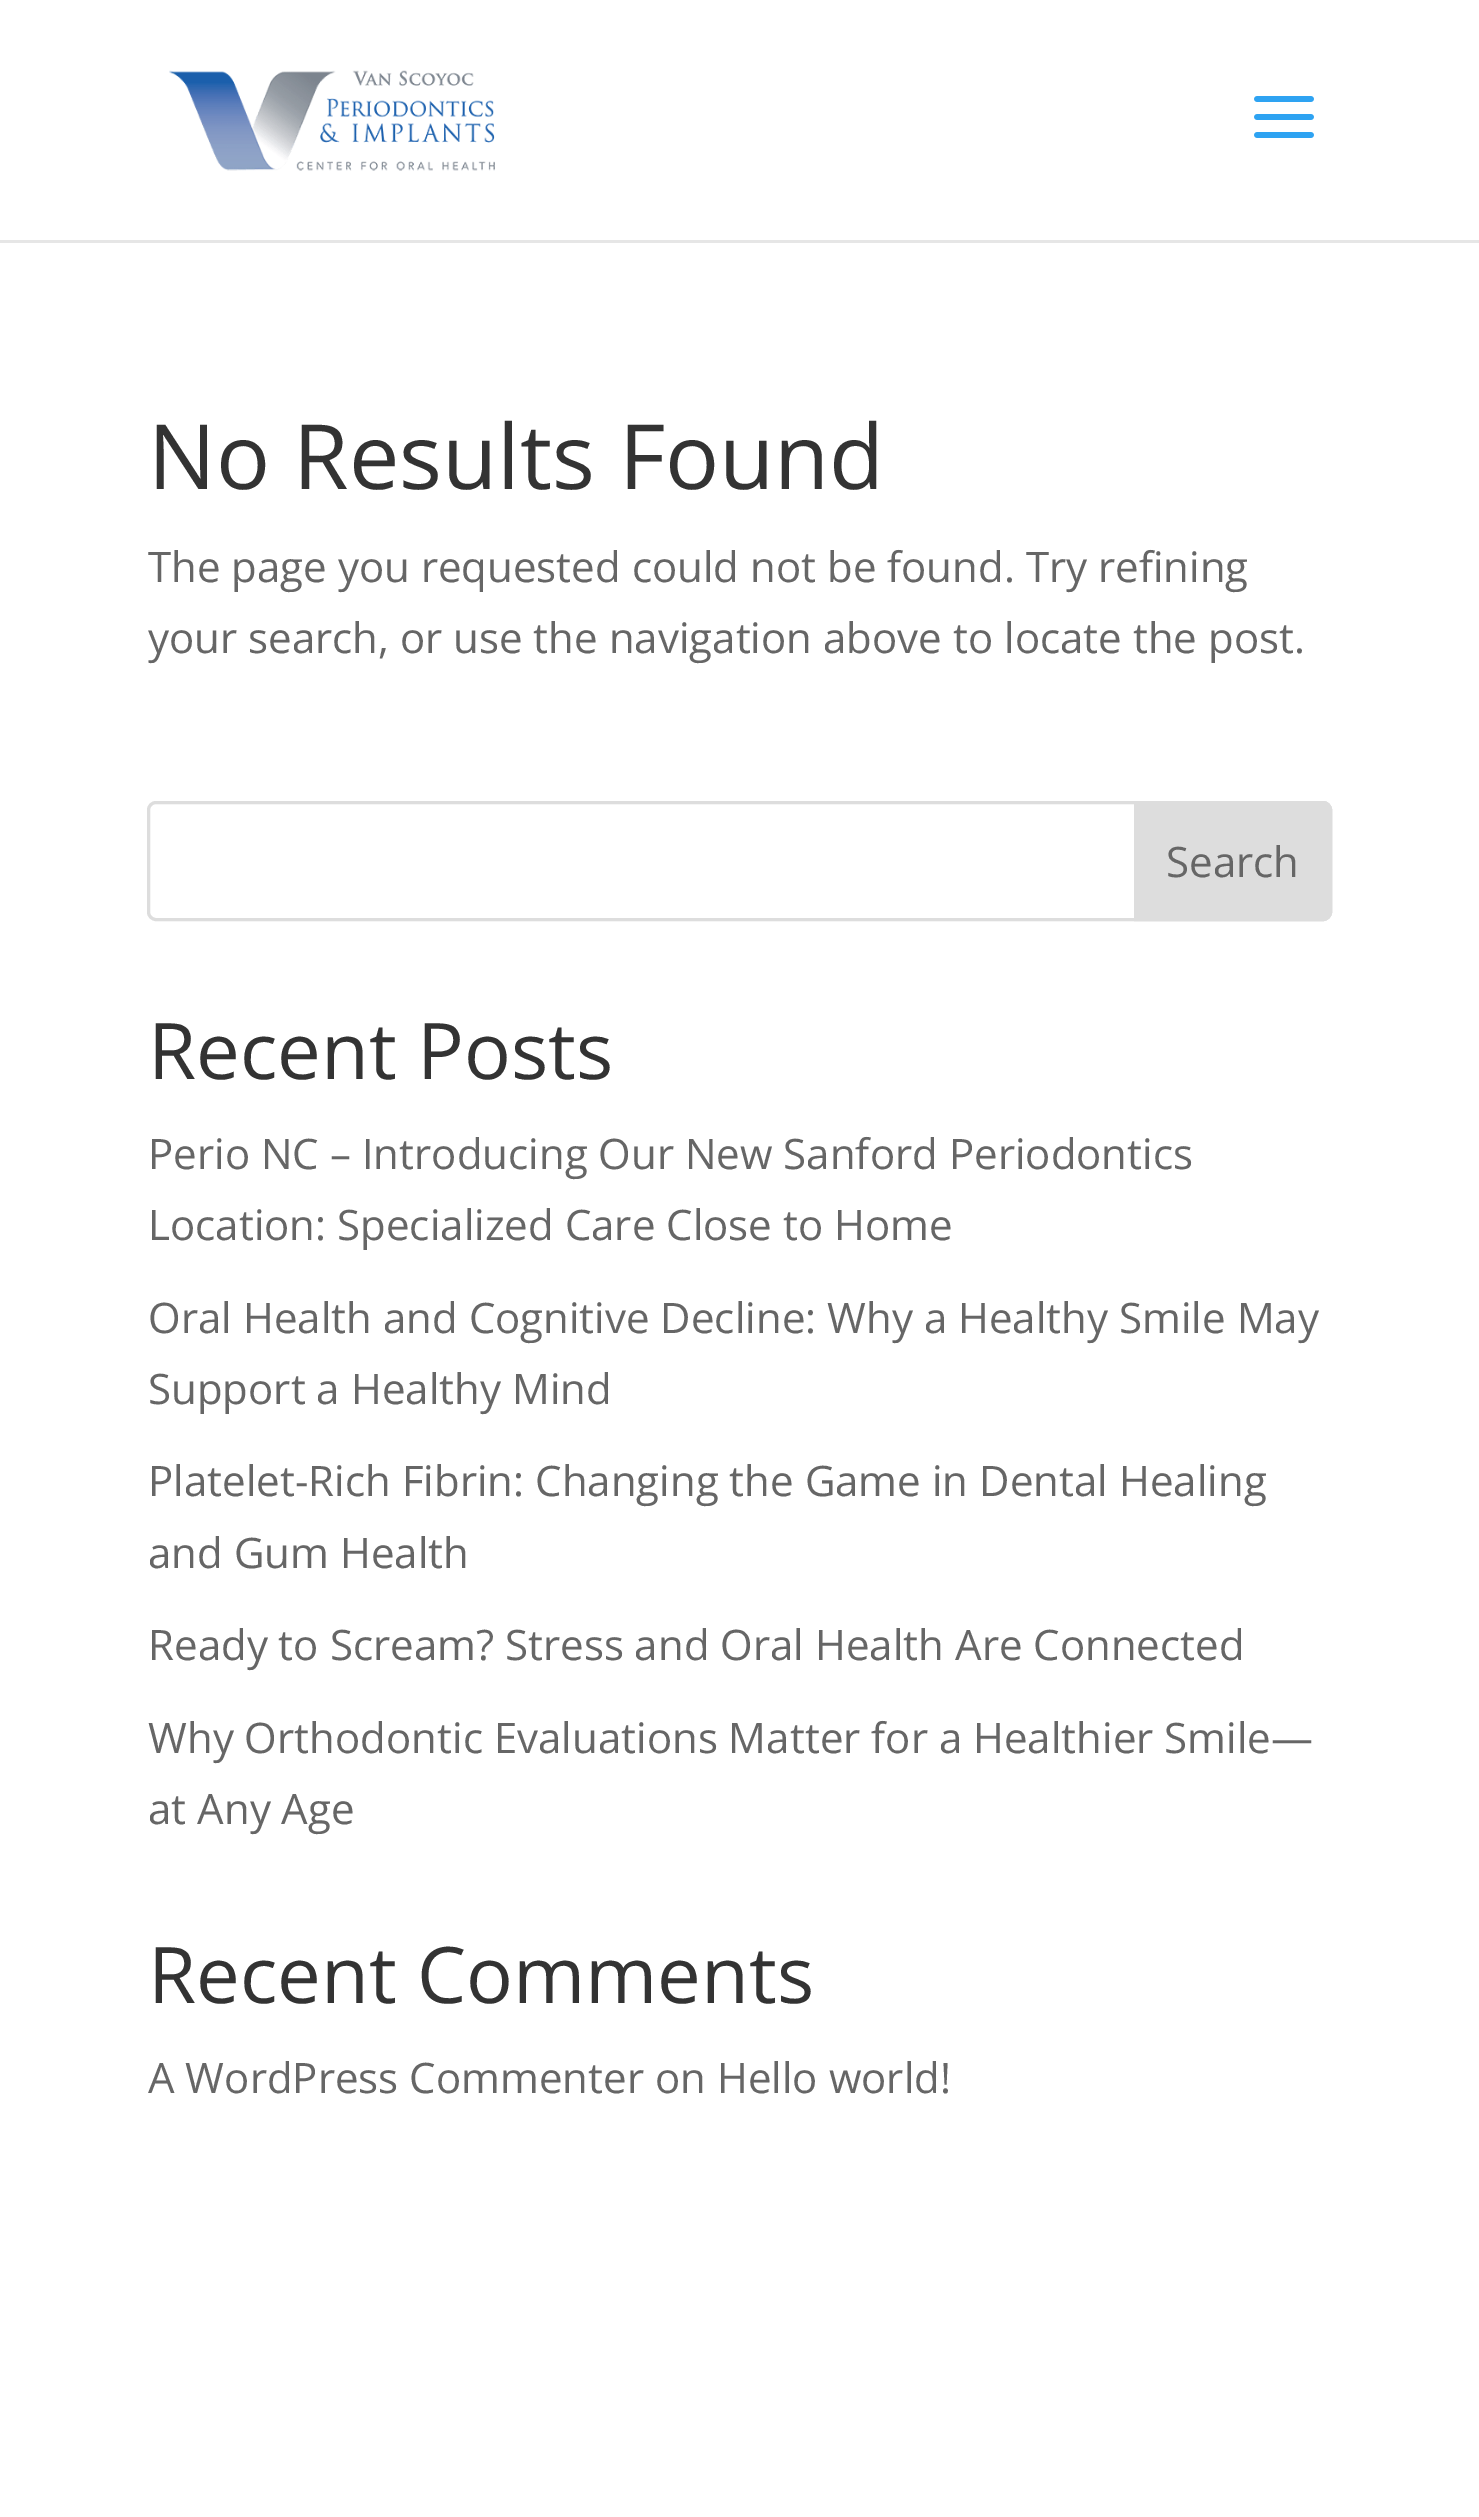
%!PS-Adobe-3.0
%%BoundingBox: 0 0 1479 2517
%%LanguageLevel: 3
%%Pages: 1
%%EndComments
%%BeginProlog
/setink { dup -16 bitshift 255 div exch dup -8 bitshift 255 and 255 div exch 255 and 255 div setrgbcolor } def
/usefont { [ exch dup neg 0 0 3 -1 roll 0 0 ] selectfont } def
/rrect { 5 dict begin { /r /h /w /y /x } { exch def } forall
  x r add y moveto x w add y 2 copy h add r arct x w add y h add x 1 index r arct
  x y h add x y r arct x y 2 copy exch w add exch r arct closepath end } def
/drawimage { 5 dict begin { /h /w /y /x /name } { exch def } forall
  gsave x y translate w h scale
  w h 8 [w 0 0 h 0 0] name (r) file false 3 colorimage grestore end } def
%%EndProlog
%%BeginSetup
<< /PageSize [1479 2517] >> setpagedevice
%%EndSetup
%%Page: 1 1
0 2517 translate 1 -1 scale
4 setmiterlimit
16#FFFFFF setink
0 0 1479 2517 rectfill
16#E6E6E6 setink
0 240 1479 3 rectfill
(img1.raw) 169 70 326 101 drawimage
(img2.raw) 1254 96 60 42 drawimage
/OpenSans-Regular 90 usefont
16#333333 setink
148 489 moveto (No Results Found) show
/OpenSans-Regular 42 usefont
16#666666 setink
148 582 moveto (The page you requested could not be found. Try refining) show
148 653 moveto (your search, or use the navigation above to locate the post.) show
16#DDDDDD setink
3 setlinewidth
148.5 802.5 1182 117 7.5 rrect stroke
1135.5 802.5 moveto 1323 802.5 lineto 1327 802.5 1330.5 806 1330.5 810 curveto 1330.5 912 lineto 1330.5 916 1327 919.5 1323 919.5 curveto 1135.5 919.5 lineto closepath gsave fill grestore
stroke
16#666666 setink
1166 877 moveto (Search) show
/OpenSans-Regular 78 usefont
16#333333 setink
148 1079 moveto (Recent Posts) show
/OpenSans-Regular 42 usefont
16#666666 setink
[
    [(Perio NC – Introducing Our New Sanford Periodontics) 148 1169]
    [(Location: Specialized Care Close to Home) 148 1240]
    [(Oral Health and Cognitive Decline: Why a Healthy Smile May) 148 1333]
    [(Support a Healthy Mind) 148 1404]
    [(Platelet-Rich Fibrin: Changing the Game in Dental Healing) 148 1496]
    [(and Gum Health) 148 1568]
    [(Ready to Scream? Stress and Oral Health Are Connected) 148 1660]
    [(Why Orthodontic Evaluations Matter for a Healthier Smile—) 148 1753]
    [(at Any Age) 148 1824]
] { aload pop moveto show } forall
/OpenSans-Regular 78 usefont
16#333333 setink
148 2003 moveto (Recent Comments) show
/OpenSans-Regular 42 usefont
16#666666 setink
148 2093 moveto (A WordPress Commenter on Hello world!) show
showpage
%%EOF
